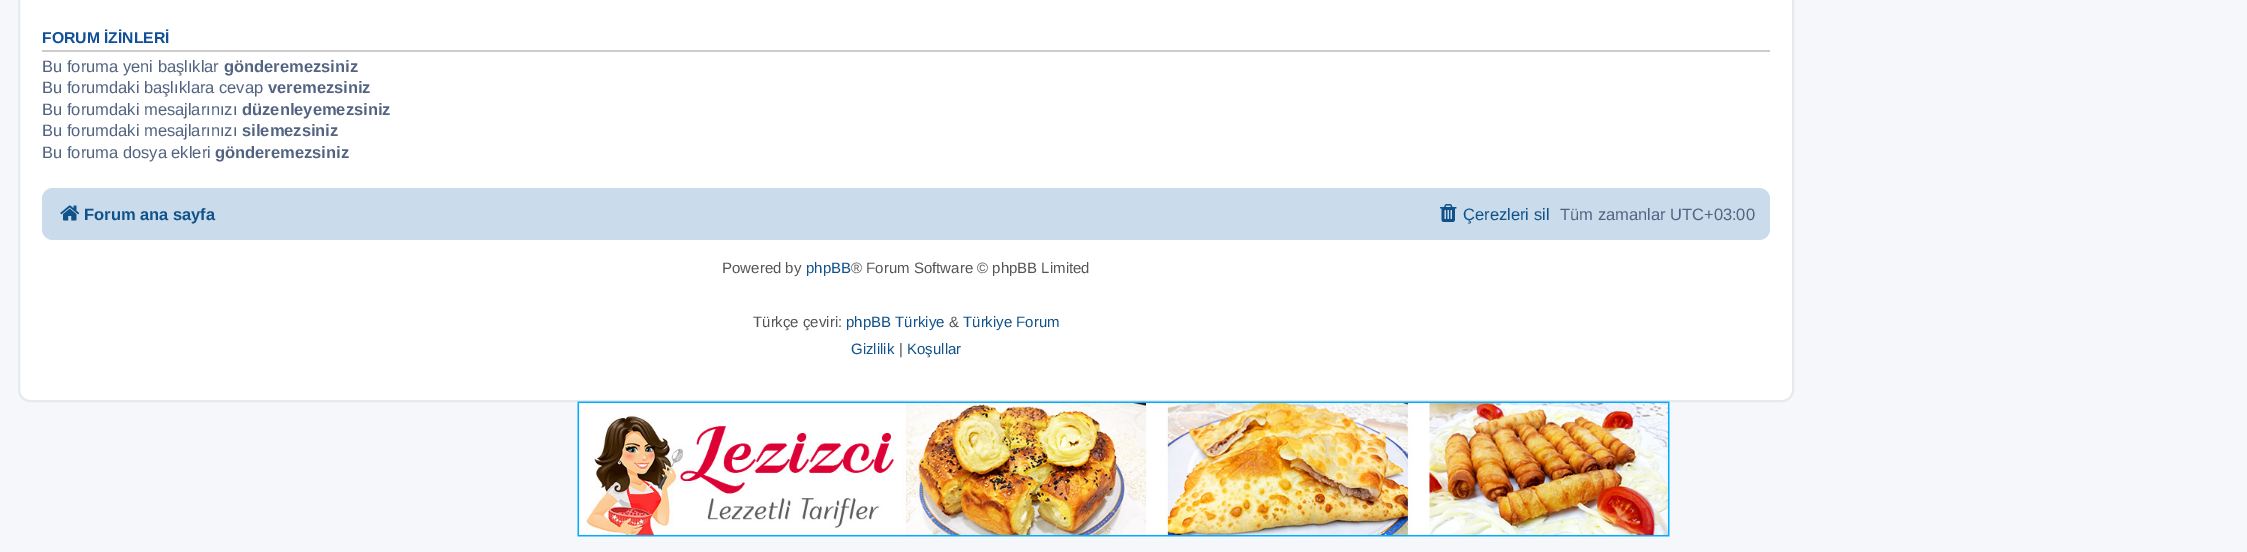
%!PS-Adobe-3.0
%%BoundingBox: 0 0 2247 552
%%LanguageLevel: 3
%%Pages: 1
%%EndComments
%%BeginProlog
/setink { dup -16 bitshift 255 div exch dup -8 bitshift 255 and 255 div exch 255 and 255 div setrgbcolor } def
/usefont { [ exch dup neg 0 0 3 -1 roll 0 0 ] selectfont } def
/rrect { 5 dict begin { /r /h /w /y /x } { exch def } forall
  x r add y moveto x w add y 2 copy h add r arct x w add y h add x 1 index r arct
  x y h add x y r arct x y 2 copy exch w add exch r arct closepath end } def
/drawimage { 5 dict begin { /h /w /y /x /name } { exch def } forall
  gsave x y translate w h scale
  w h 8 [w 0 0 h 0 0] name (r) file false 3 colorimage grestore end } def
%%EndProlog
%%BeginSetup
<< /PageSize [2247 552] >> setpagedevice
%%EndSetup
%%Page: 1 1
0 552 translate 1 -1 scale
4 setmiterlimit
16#F5F7FA setink
0 0 2247 552 rectfill
16#FFFFFF setink
19 -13 1774 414 11 rrect gsave fill grestore
16#E6E9ED setink
2 setlinewidth
stroke
16#CCCCCC setink
42 50 1728 2 rectfill
/LiberationSans-Bold 15.75 usefont
16#115098 setink
42 43 moveto (FORUM İZİNLERİ) show
/LiberationSans-Regular 16.5 usefont
16#536482 setink
42 72 moveto (Bu foruma yeni başlıklar) show
/LiberationSans-Bold 16.5 usefont
224 72 moveto (gönderemezsiniz) show
/LiberationSans-Regular 16.5 usefont
42 93 moveto (Bu forumdaki başlıklara cevap) show
/LiberationSans-Bold 16.5 usefont
268 93 moveto (veremezsiniz) show
/LiberationSans-Regular 16.5 usefont
42 115 moveto (Bu forumdaki mesajlarınızı) show
/LiberationSans-Bold 16.5 usefont
242 115 moveto (düzenleyemezsiniz) show
/LiberationSans-Regular 16.5 usefont
42 136 moveto (Bu forumdaki mesajlarınızı) show
/LiberationSans-Bold 16.5 usefont
242 136 moveto (silemezsiniz) show
/LiberationSans-Regular 16.5 usefont
42 158 moveto (Bu foruma dosya ekleri) show
/LiberationSans-Bold 16.5 usefont
215 158 moveto (gönderemezsiniz) show
16#CADCEB setink
42 188 1728 52 11 rrect fill
(img1.raw) 60 205 20 16 drawimage
16#105289 setink
84 220 moveto (Forum ana sayfa) show
(img2.raw) 1440 204 17 18 drawimage
/LiberationSans-Regular 16.5 usefont
1463 220 moveto (Çerezleri sil) show
16#536482 setink
1560 220 moveto (Tüm zamanlar UTC+03:00) show
/LiberationSans-Regular 15 usefont
16#555555 setink
722 273 moveto (Powered by) show
16#105289 setink
806 273 moveto (phpBB) show
16#555555 setink
851 273 moveto (® Forum Software © phpBB Limited) show
753 327 moveto (Türkçe çeviri:) show
16#105289 setink
846 327 moveto (phpBB Türkiye) show
16#555555 setink
949 327 moveto (&) show
16#105289 setink
963 327 moveto (Türkiye Forum) show
851 354 moveto (Gizlilik) show
16#555555 setink
899 354 moveto (|) show
16#105289 setink
907 354 moveto (Koşullar) show
(img3.raw) 577 401 1093 136 drawimage
showpage
%%EOF
